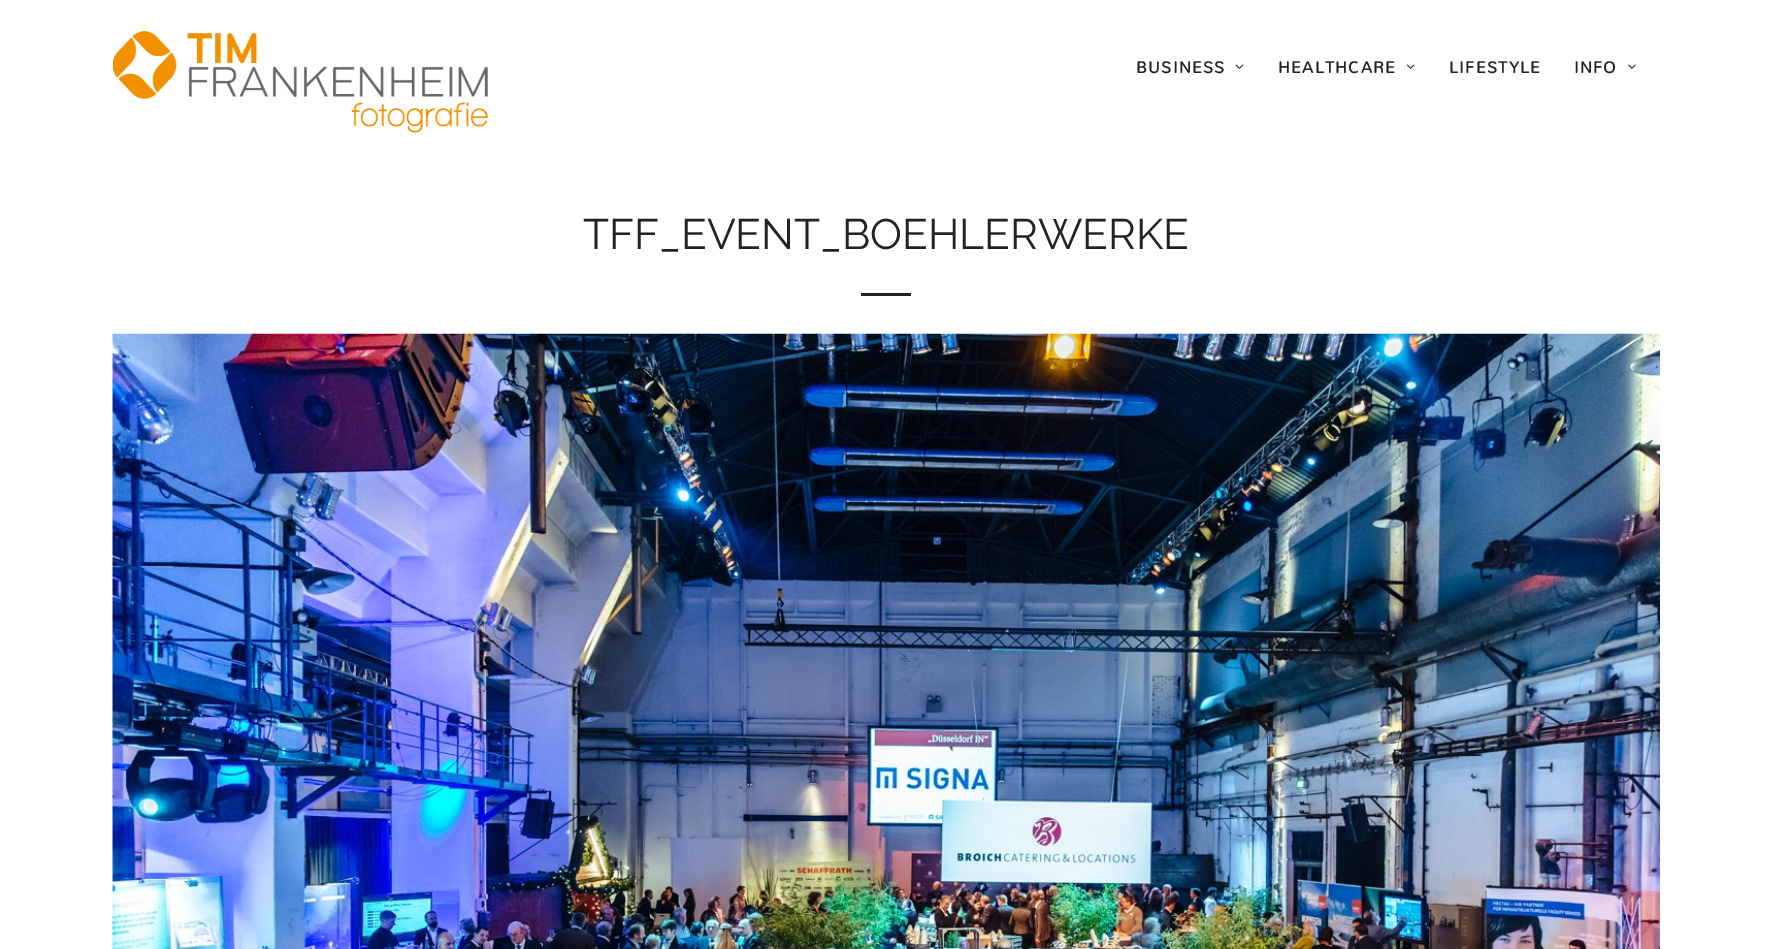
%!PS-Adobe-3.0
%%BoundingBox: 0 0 1772 949
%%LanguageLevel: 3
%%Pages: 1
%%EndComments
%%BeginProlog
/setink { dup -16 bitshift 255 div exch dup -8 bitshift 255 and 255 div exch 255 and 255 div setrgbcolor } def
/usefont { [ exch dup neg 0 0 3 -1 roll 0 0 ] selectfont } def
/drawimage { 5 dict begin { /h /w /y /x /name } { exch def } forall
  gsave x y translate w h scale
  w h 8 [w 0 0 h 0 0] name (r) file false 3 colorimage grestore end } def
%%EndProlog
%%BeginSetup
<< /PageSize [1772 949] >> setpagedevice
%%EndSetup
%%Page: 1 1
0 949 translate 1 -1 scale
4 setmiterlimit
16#FFFFFF setink
0 0 1772 949 rectfill
(img1.raw) 113 31 375 102 drawimage
/Mandali-Bold 16.25 usefont
16#222222 setink
1136 73 moveto 1.25 0 (BUSINESS) ashow
(img2.raw) 1235 64 9 5 drawimage
1278 73 moveto 1.25 0 (HEALTHCARE) ashow
(img3.raw) 1406 64 9 5 drawimage
1449 73 moveto 1.25 0 (LIFESTYLE) ashow
1574 73 moveto 1.25 0 (INFO) ashow
(img4.raw) 1628 64 8 5 drawimage
/Raleway-Thin 42.5 usefont
583 249 moveto (TFF_EVENT_BOEHLERWERKE) show
861 293 50 3 rectfill
(img5.raw) 112 333 1548 616 drawimage
showpage
%%EOF
